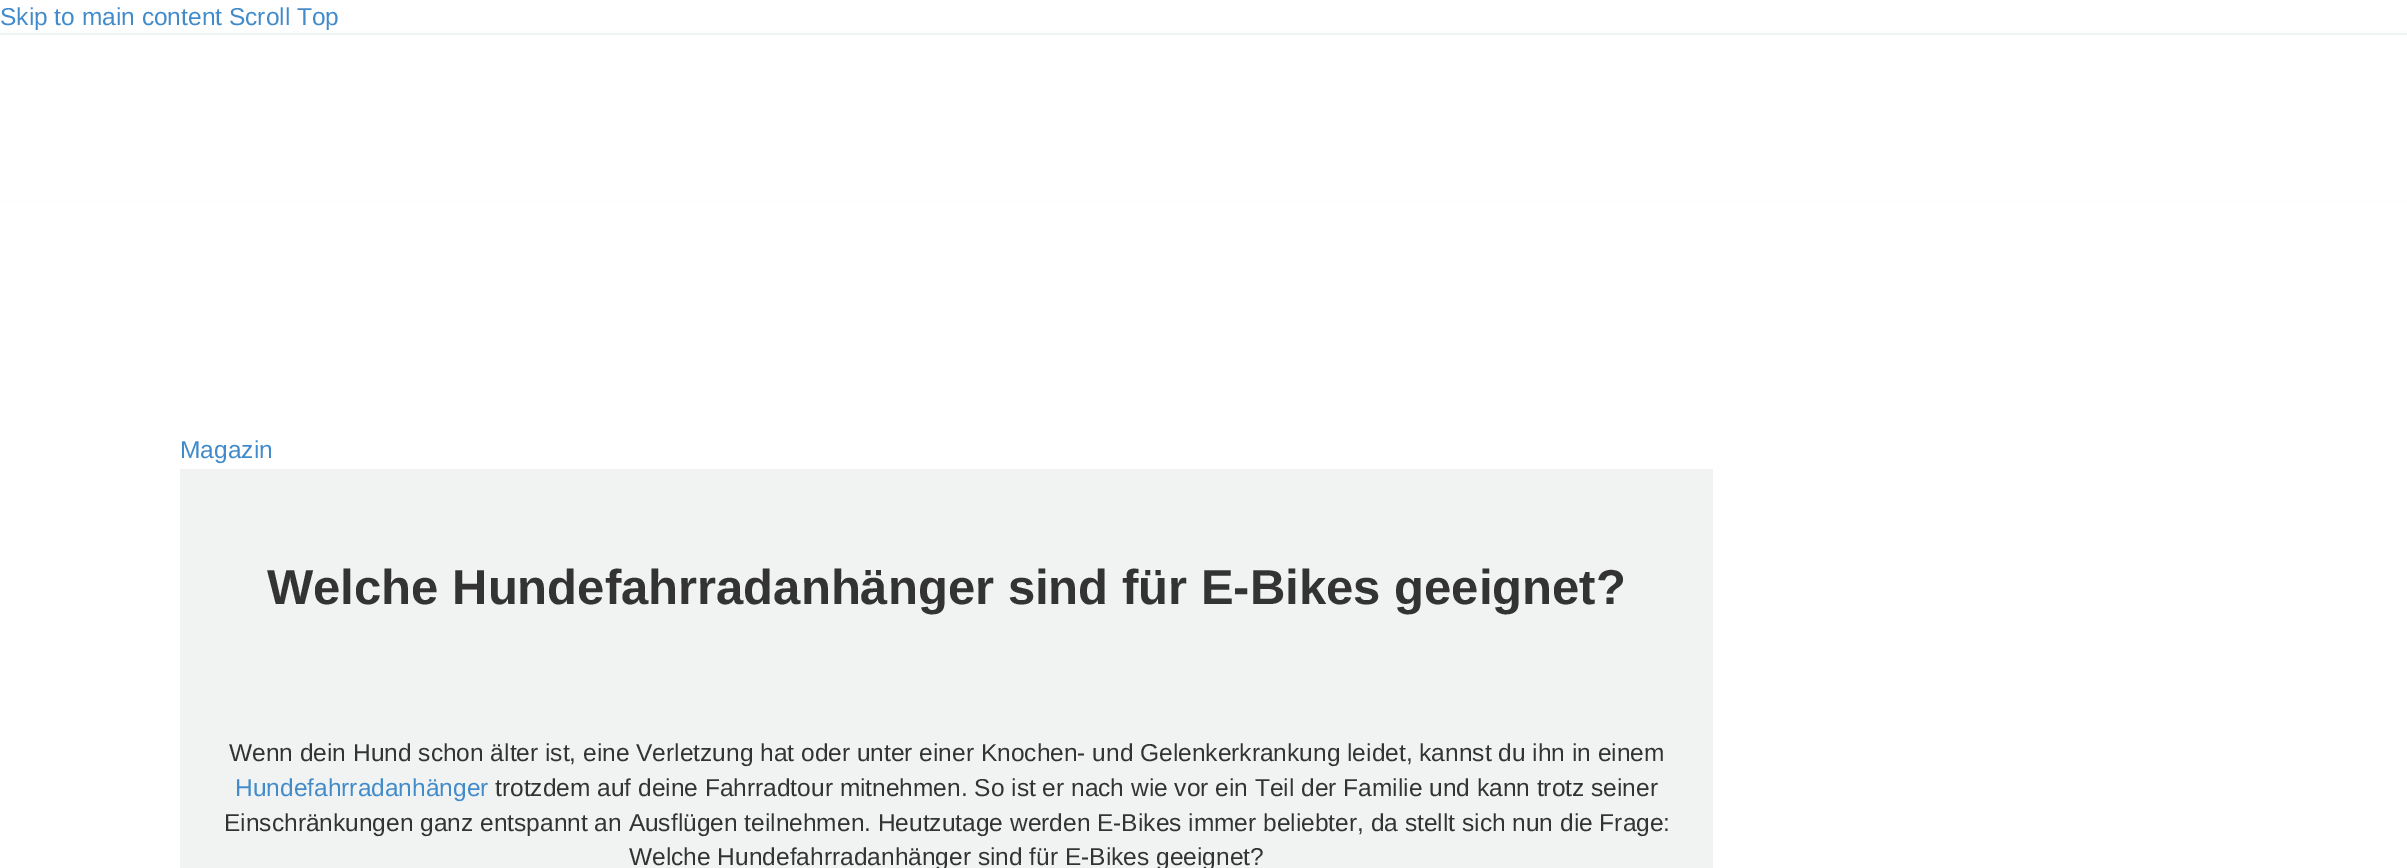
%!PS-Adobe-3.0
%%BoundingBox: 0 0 2407 868
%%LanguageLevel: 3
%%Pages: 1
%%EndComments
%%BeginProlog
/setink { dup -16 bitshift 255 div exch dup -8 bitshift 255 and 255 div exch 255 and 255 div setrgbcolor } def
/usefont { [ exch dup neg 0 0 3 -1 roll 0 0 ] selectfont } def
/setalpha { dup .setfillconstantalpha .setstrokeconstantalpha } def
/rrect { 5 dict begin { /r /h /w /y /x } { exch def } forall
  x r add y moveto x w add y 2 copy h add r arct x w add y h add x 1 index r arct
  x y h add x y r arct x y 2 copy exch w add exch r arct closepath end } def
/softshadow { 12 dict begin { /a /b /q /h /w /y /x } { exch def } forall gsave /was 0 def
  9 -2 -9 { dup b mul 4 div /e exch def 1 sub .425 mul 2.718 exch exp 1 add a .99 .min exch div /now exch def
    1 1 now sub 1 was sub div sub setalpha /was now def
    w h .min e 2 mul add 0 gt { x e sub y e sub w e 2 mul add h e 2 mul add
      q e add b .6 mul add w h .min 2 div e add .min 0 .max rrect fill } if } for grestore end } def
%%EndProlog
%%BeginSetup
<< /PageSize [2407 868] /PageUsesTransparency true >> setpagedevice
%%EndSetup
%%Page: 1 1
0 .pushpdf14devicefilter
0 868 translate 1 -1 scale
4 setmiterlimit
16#FFFFFF setink
0 0 2407 868 rectfill
gsave
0 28 moveto 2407 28 lineto 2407 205 lineto 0 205 lineto closepath 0 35 moveto 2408 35 lineto 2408 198 lineto 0 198 lineto closepath eoclip newpath
16#384554 setink
0 35 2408 163 0 2 0.2 softshadow
grestore
/LiberationSans-Regular 24.5 usefont
16#428BCA setink
0 25 moveto (Skip to main content Scroll Top) show
16#FFFFFF setink
0 198 2407 3 rectfill
16#428BCA setink
180 458 moveto (Magazin) show
16#F0F3F2 setink
180 469 1533 399 rectfill
/LiberationSans-Bold 49 usefont
16#333333 setink
267 604 moveto (Welche Hundefahrradanhänger sind für E-Bikes geeignet?) show
/LiberationSans-Regular 24.5 usefont
229 761 moveto (Wenn dein Hund schon älter ist, eine Verletzung hat oder unter einer Knochen- und Gelenkerkrankung leidet, kannst du ihn in einem) show
16#428BCA setink
235 796 moveto (Hundefahrradanhänger) show
16#333333 setink
[
    [(trotzdem auf deine Fahrradtour mitnehmen. So ist er nach wie vor ein Teil der Familie und kann trotz seiner) 495 796]
    [(Einschränkungen ganz entspannt an Ausflügen teilnehmen. Heutzutage werden E-Bikes immer beliebter, da stellt sich nun die Frage:) 224 831]
    [(Welche Hundefahrradanhänger sind für E-Bikes geeignet?) 629 865]
] { aload pop moveto show } forall
.poppdf14devicefilter showpage
%%EOF
